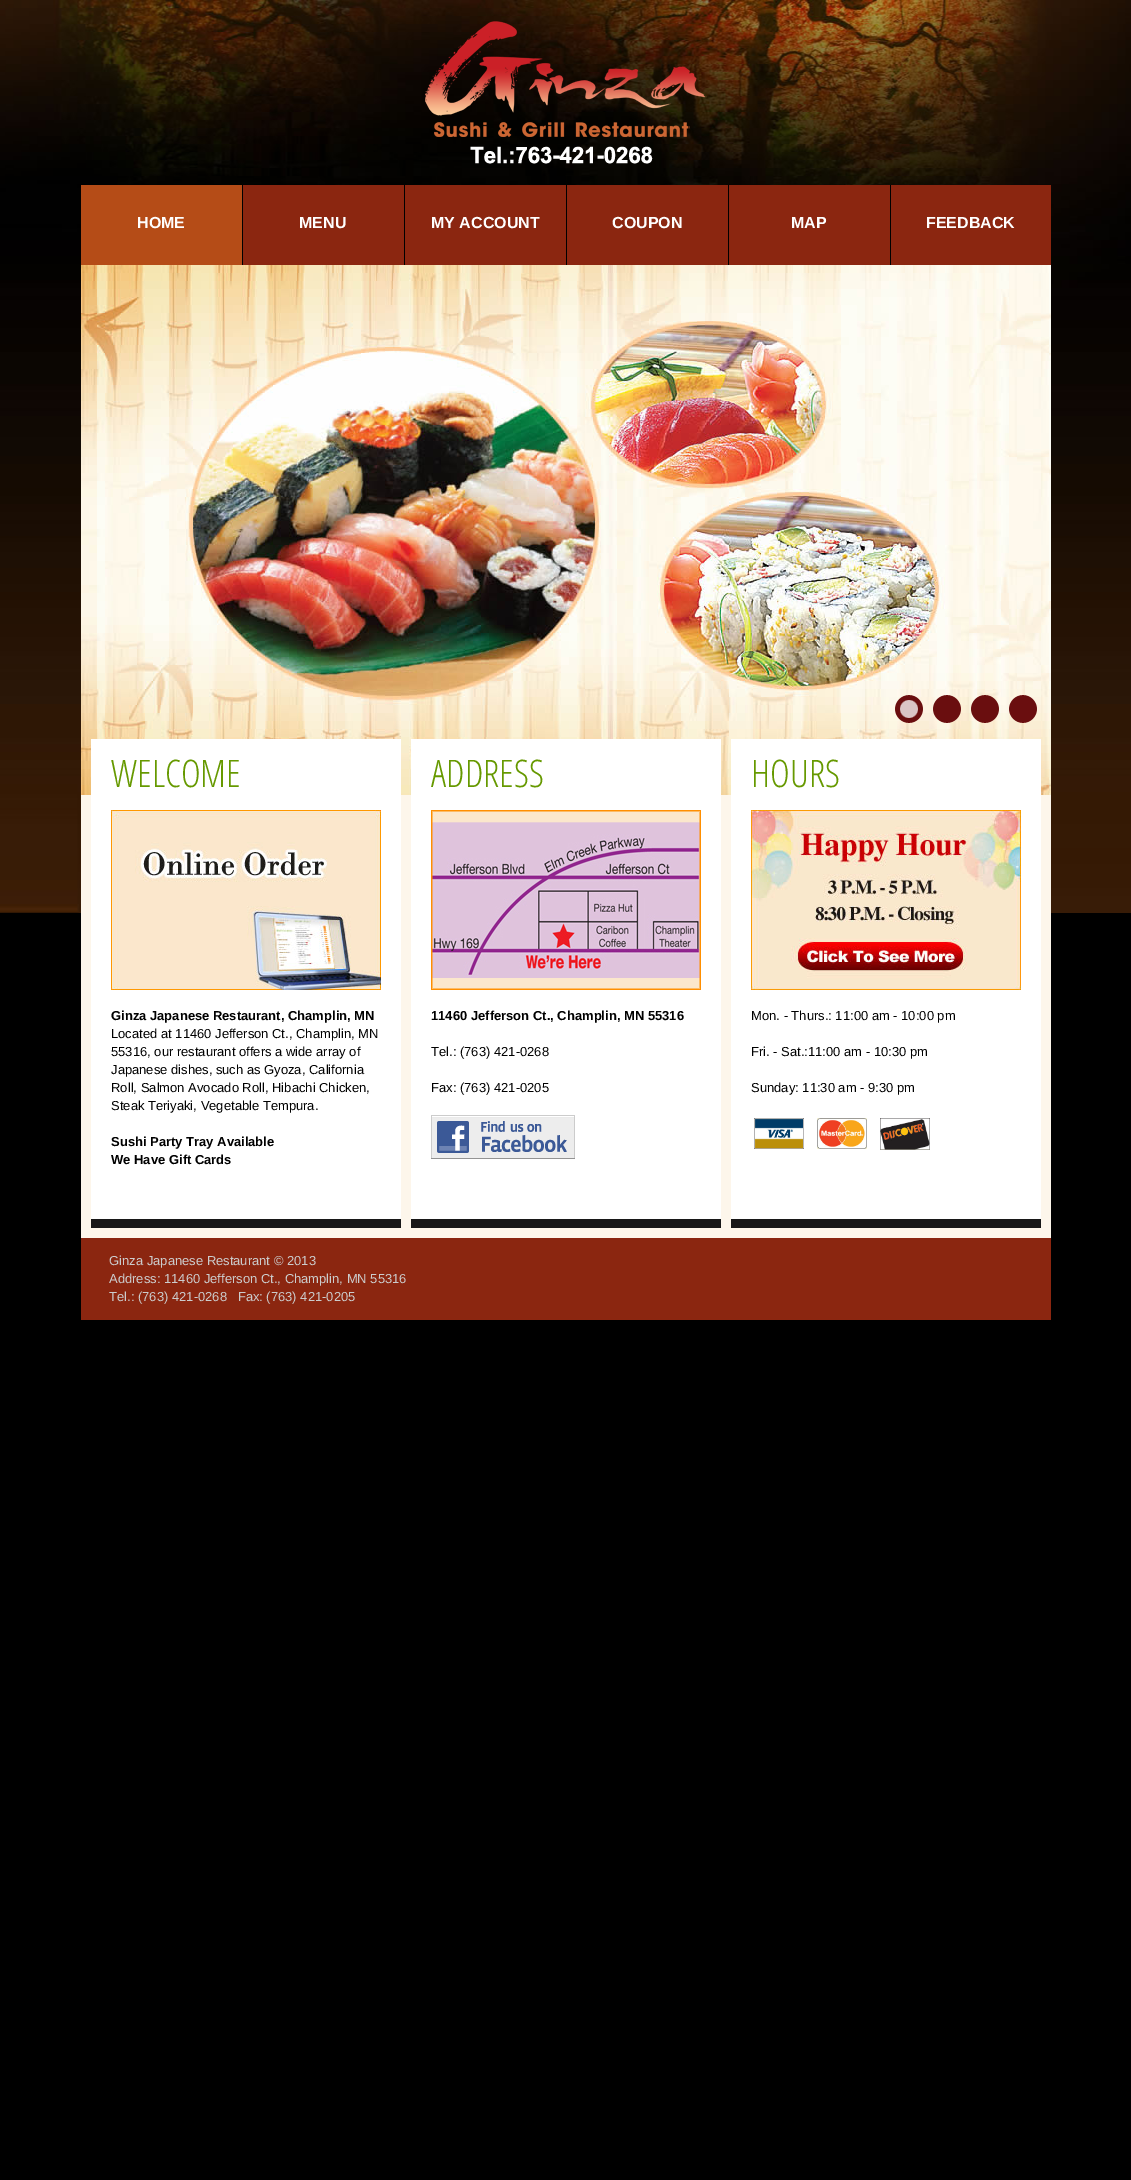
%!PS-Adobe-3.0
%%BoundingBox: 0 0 1131 2180
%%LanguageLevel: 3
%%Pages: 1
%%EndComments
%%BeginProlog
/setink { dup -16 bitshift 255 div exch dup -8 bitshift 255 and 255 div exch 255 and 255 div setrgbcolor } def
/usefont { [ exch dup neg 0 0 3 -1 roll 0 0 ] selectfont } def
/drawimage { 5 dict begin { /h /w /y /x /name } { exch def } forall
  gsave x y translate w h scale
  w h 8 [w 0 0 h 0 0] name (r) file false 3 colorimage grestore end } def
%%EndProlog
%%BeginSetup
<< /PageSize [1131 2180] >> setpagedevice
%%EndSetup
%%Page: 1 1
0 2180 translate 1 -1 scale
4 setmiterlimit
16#000000 setink
0 0 1131 2180 rectfill
(img1.raw) 0 0 1131 913 drawimage
(img2.raw) 425 21 282 143 drawimage
242 185 649 80 rectfill
16#B54C17 setink
81 185 161 80 rectfill
/LiberationSans-Bold 16 usefont
16#FFFFFF setink
137 228 moveto (HOME) show
16#8B2610 setink
243 185 161 80 rectfill
16#FFFFFF setink
299 228 moveto (MENU) show
16#8B2610 setink
405 185 161 80 rectfill
16#FFFFFF setink
431 228 moveto (MY ACCOUNT) show
16#8B2610 setink
567 185 161 80 rectfill
16#FFFFFF setink
612 228 moveto (COUPON) show
16#8B2610 setink
729 185 161 80 rectfill
16#FFFFFF setink
791 228 moveto (MAP) show
16#8B2610 setink
891 185 160 80 rectfill
16#FFFFFF setink
926 228 moveto (FEEDBACK) show
(img3.raw) 81 265 970 530 drawimage
(img4.raw) 895 695 28 28 drawimage
(img5.raw) 933 695 28 28 drawimage
(img6.raw) 971 695 28 28 drawimage
(img7.raw) 1009 695 28 28 drawimage
[
    [81 795 970 443 16#FDF6EB]
    [91 1219 310 9 16#181818]
    [91 739 310 480 16#FFFFFF]
] { aload pop setink rectfill } forall
/OpenSansCondensed-Light 38 usefont
16#669900 setink
111 787 moveto (WELCOME) show
(img8.raw) 111 810 270 180 drawimage
/LiberationSans-Bold 13 usefont
16#000000 setink
111 1020 moveto (Ginza Japanese Restaurant, Champlin, MN) show
/LiberationSans-Regular 13 usefont
[
    [(Located at 11460 Jefferson Ct., Champlin, MN) 111 1038]
    [(55316, our restaurant offers a wide array of) 111 1056]
    [(Japanese dishes, such as Gyoza, California) 111 1074]
    [(Roll, Salmon Avocado Roll, Hibachi Chicken,) 111 1092]
    [(Steak Teriyaki, Vegetable Tempura.) 111 1110]
] { aload pop moveto show } forall
/LiberationSans-Bold 13 usefont
111 1146 moveto (Sushi Party Tray Available) show
111 1164 moveto (We Have Gift Cards) show
16#181818 setink
411 1219 310 9 rectfill
16#FFFFFF setink
411 739 310 480 rectfill
/OpenSansCondensed-Light 38 usefont
16#669900 setink
431 787 moveto (ADDRESS) show
(img9.raw) 431 810 270 180 drawimage
/LiberationSans-Bold 13 usefont
16#000000 setink
431 1020 moveto (11460 Jefferson Ct., Champlin, MN 55316) show
/LiberationSans-Regular 13 usefont
431 1056 moveto (Tel.: \(763\) 421-0268) show
431 1092 moveto (Fax: \(763\) 421-0205) show
(img10.raw) 431 1115 144 44 drawimage
16#181818 setink
731 1219 310 9 rectfill
16#FFFFFF setink
731 739 310 480 rectfill
/OpenSansCondensed-Light 38 usefont
16#669900 setink
751 787 moveto (HOURS) show
(img11.raw) 751 810 270 180 drawimage
/LiberationSans-Regular 13 usefont
16#000000 setink
[
    [(Mon. - Thurs.: 11:00 am - 10:00 pm) 751 1020]
    [(Fri. - Sat.:11:00 am - 10:30 pm) 751 1056]
    [(Sunday: 11:30 am - 9:30 pm) 751 1092]
] { aload pop moveto show } forall
(img12.raw) 754 1118 50 31 drawimage
(img13.raw) 817 1118 50 31 drawimage
(img14.raw) 880 1118 50 32 drawimage
16#8B2610 setink
81 1238 970 82 rectfill
16#CCCCCC setink
[
    [(Ginza Japanese Restaurant © 2013) 109 1265]
    [(Address: 11460 Jefferson Ct., Champlin, MN 55316) 109 1283]
    [(Tel.: \(763\) 421-0268   Fax: \(763\) 421-0205) 109 1301]
] { aload pop moveto show } forall
showpage
%%EOF
